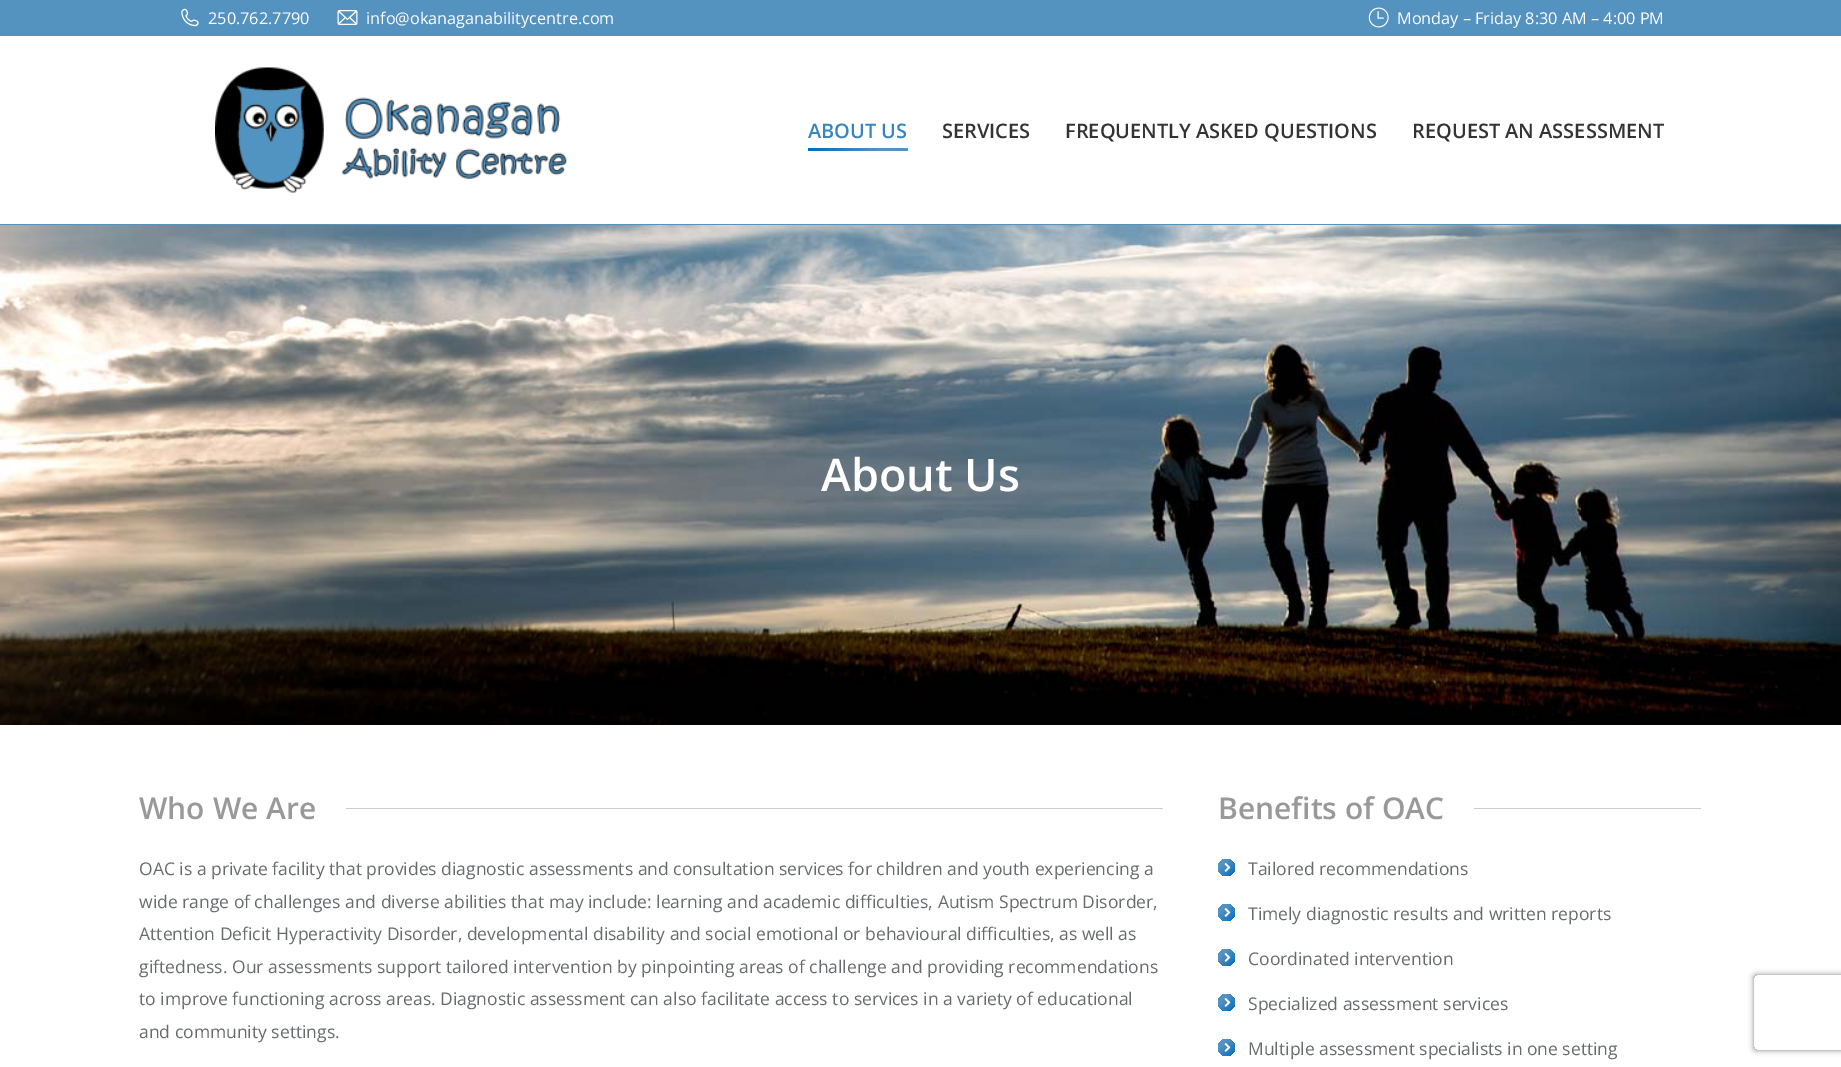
%!PS-Adobe-3.0
%%BoundingBox: 0 0 1841 1067
%%LanguageLevel: 3
%%Pages: 1
%%EndComments
%%BeginProlog
/setink { dup -16 bitshift 255 div exch dup -8 bitshift 255 and 255 div exch 255 and 255 div setrgbcolor } def
/usefont { [ exch dup neg 0 0 3 -1 roll 0 0 ] selectfont } def
/setalpha { dup .setfillconstantalpha .setstrokeconstantalpha } def
/disc { newpath 0 360 arc closepath } def
/rrect { 5 dict begin { /r /h /w /y /x } { exch def } forall
  x r add y moveto x w add y 2 copy h add r arct x w add y h add x 1 index r arct
  x y h add x y r arct x y 2 copy exch w add exch r arct closepath end } def
/softshadow { 12 dict begin { /a /b /q /h /w /y /x } { exch def } forall gsave /was 0 def
  9 -2 -9 { dup b mul 4 div /e exch def 1 sub .425 mul 2.718 exch exp 1 add a .99 .min exch div /now exch def
    1 1 now sub 1 was sub div sub setalpha /was now def
    w h .min e 2 mul add 0 gt { x e sub y e sub w e 2 mul add h e 2 mul add
      q e add b .6 mul add w h .min 2 div e add .min 0 .max rrect fill } if } for grestore end } def
/drawimage { 5 dict begin { /h /w /y /x /name } { exch def } forall
  gsave x y translate w h scale
  w h 8 [w 0 0 h 0 0] name (r) file false 3 colorimage grestore end } def
%%EndProlog
%%BeginSetup
<< /PageSize [1841 1067] /PageUsesTransparency true >> setpagedevice
%%EndSetup
%%Page: 1 1
0 .pushpdf14devicefilter
0 1067 translate 1 -1 scale
4 setmiterlimit
16#FFFFFF setink
0 0 1841 1067 rectfill
16#5492C0 setink
0 224 1841 1 rectfill
0 0 1841 36 rectfill
(img1.raw) 181 8 18 19 drawimage
/OpenSans-Regular 16.25 usefont
16#FFFFFF setink
208 24 moveto (250.762.7790) show
(img2.raw) 337 10 21 15 drawimage
366 24 moveto (info@okanaganabilitycentre.com) show
(img3.raw) 1368 7 21 21 drawimage
1397 24 moveto (Monday – Friday 8:30 AM – 4:00 PM) show
(img4.raw) 215 67 352 126 drawimage
/OpenSans-SemiBold 20 usefont
16#3785C0 setink
808 138 moveto (ABOUT US) show
gsave 808 148 moveto 908 148 lineto 908 151 lineto 808 151 lineto closepath clip newpath
<< /ShadingType 2 /ColorSpace /DeviceRGB /Coords [908 149 808 149] /Extend [true true] /Function << /FunctionType 3 /Domain [0 1] /Functions [<< /FunctionType 2 /Domain [0 1] /C0 [0.329 0.573 0.753] /C1 [0.329 0.573 0.753] /N 1 >> << /FunctionType 2 /Domain [0 1] /C0 [0.329 0.573 0.753] /C1 [0 0.424 0.749] /N 1 >>] /Bounds [0.3] /Encode [0 1 0 1] >> >> shfill grestore
16#333333 setink
[
    [(SERVICES) 942 138]
    [(FREQUENTLY ASKED QUESTIONS) 1065 138]
    [(REQUEST AN ASSESSMENT) 1412 138]
] { aload pop moveto show } forall
(img5.raw) 0 225 1841 500 drawimage
/OpenSans-SemiBold 45 usefont
16#FFFFFF setink
821 491 moveto (About Us) show
/OpenSans-SemiBold 30 usefont
16#999999 setink
139 819 moveto (Who We Are) show
16#CCCCCC setink
346 808 817 1 rectfill
/OpenSans-Regular 17.5 usefont
16#676B6D setink
[
    [(OAC is a private facility that provides diagnostic assessments and consultation services for children and youth experiencing a) 139 875]
    [(wide range of challenges and diverse abilities that may include: learning and academic difficulties, Autism Spectrum Disorder,) 139 908]
    [(Attention Deficit Hyperactivity Disorder, developmental disability and social emotional or behavioural difficulties, as well as) 139 940]
    [(giftedness. Our assessments support tailored intervention by pinpointing areas of challenge and providing recommendations) 139 973]
    [(to improve functioning across areas. Diagnostic assessment can also facilitate access to services in a variety of educational) 139 1005]
    [(and community settings.) 139 1038]
] { aload pop moveto show } forall
/OpenSans-SemiBold 30 usefont
16#999999 setink
1218 819 moveto (Benefits of OAC) show
16#CCCCCC setink
1474 808 227 1 rectfill
gsave 1226.5 867.5 8.5 disc clip newpath
<< /ShadingType 2 /ColorSpace /DeviceRGB /Coords [1218 859 1235 876] /Extend [true true] /Function << /FunctionType 3 /Domain [0 1] /Functions [<< /FunctionType 2 /Domain [0 1] /C0 [0.329 0.573 0.753] /C1 [0.329 0.573 0.753] /N 1 >> << /FunctionType 2 /Domain [0 1] /C0 [0.329 0.573 0.753] /C1 [0 0.424 0.749] /N 1 >>] /Bounds [0.3] /Encode [0 1 0 1] >> >> shfill grestore
/OpenSans-Regular 17.5 usefont
16#676B6D setink
1248 875 moveto (Tailored recommendations) show
(img6.raw) 1224 863 7 9 drawimage
gsave 1226.5 912.5 8.5 disc clip newpath
<< /ShadingType 2 /ColorSpace /DeviceRGB /Coords [1218 904 1235 921] /Extend [true true] /Function << /FunctionType 3 /Domain [0 1] /Functions [<< /FunctionType 2 /Domain [0 1] /C0 [0.329 0.573 0.753] /C1 [0.329 0.573 0.753] /N 1 >> << /FunctionType 2 /Domain [0 1] /C0 [0.329 0.573 0.753] /C1 [0 0.424 0.749] /N 1 >>] /Bounds [0.3] /Encode [0 1 0 1] >> >> shfill grestore
1248 920 moveto (Timely diagnostic results and written reports) show
(img6.raw) 1224 908 7 9 drawimage
gsave 1226.5 957.5 8.5 disc clip newpath
<< /ShadingType 2 /ColorSpace /DeviceRGB /Coords [1218 949 1235 966] /Extend [true true] /Function << /FunctionType 3 /Domain [0 1] /Functions [<< /FunctionType 2 /Domain [0 1] /C0 [0.329 0.573 0.753] /C1 [0.329 0.573 0.753] /N 1 >> << /FunctionType 2 /Domain [0 1] /C0 [0.329 0.573 0.753] /C1 [0 0.424 0.749] /N 1 >>] /Bounds [0.3] /Encode [0 1 0 1] >> >> shfill grestore
1248 965 moveto (Coordinated intervention) show
(img6.raw) 1224 953 7 9 drawimage
gsave 1226.5 1002.5 8.5 disc clip newpath
<< /ShadingType 2 /ColorSpace /DeviceRGB /Coords [1218 994 1235 1011] /Extend [true true] /Function << /FunctionType 3 /Domain [0 1] /Functions [<< /FunctionType 2 /Domain [0 1] /C0 [0.329 0.573 0.753] /C1 [0.329 0.573 0.753] /N 1 >> << /FunctionType 2 /Domain [0 1] /C0 [0.329 0.573 0.753] /C1 [0 0.424 0.749] /N 1 >>] /Bounds [0.3] /Encode [0 1 0 1] >> >> shfill grestore
1248 1010 moveto (Specialized assessment services) show
(img6.raw) 1224 998 7 9 drawimage
gsave 1226.5 1047.5 8.5 disc clip newpath
<< /ShadingType 2 /ColorSpace /DeviceRGB /Coords [1218 1039 1235 1056] /Extend [true true] /Function << /FunctionType 3 /Domain [0 1] /Functions [<< /FunctionType 2 /Domain [0 1] /C0 [0.329 0.573 0.753] /C1 [0.329 0.573 0.753] /N 1 >> << /FunctionType 2 /Domain [0 1] /C0 [0.329 0.573 0.753] /C1 [0 0.424 0.749] /N 1 >>] /Bounds [0.3] /Encode [0 1 0 1] >> >> shfill grestore
1248 1055 moveto (Multiple assessment specialists in one setting) show
(img6.raw) 1224 1043 7 9 drawimage
gsave
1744 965 moveto 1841 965 lineto 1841 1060 lineto 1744 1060 lineto closepath 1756.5 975 moveto 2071.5 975 lineto 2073 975 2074 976 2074 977.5 curveto 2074 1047.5 lineto 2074 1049 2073 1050 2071.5 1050 curveto 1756.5 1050 lineto 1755 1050 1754 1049 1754 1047.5 curveto 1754 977.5 lineto 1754 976 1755 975 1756.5 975 curveto closepath eoclip newpath
16#808080 setink
1754 975 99 75 2.5 3 1 softshadow
grestore
.poppdf14devicefilter showpage
%%EOF
